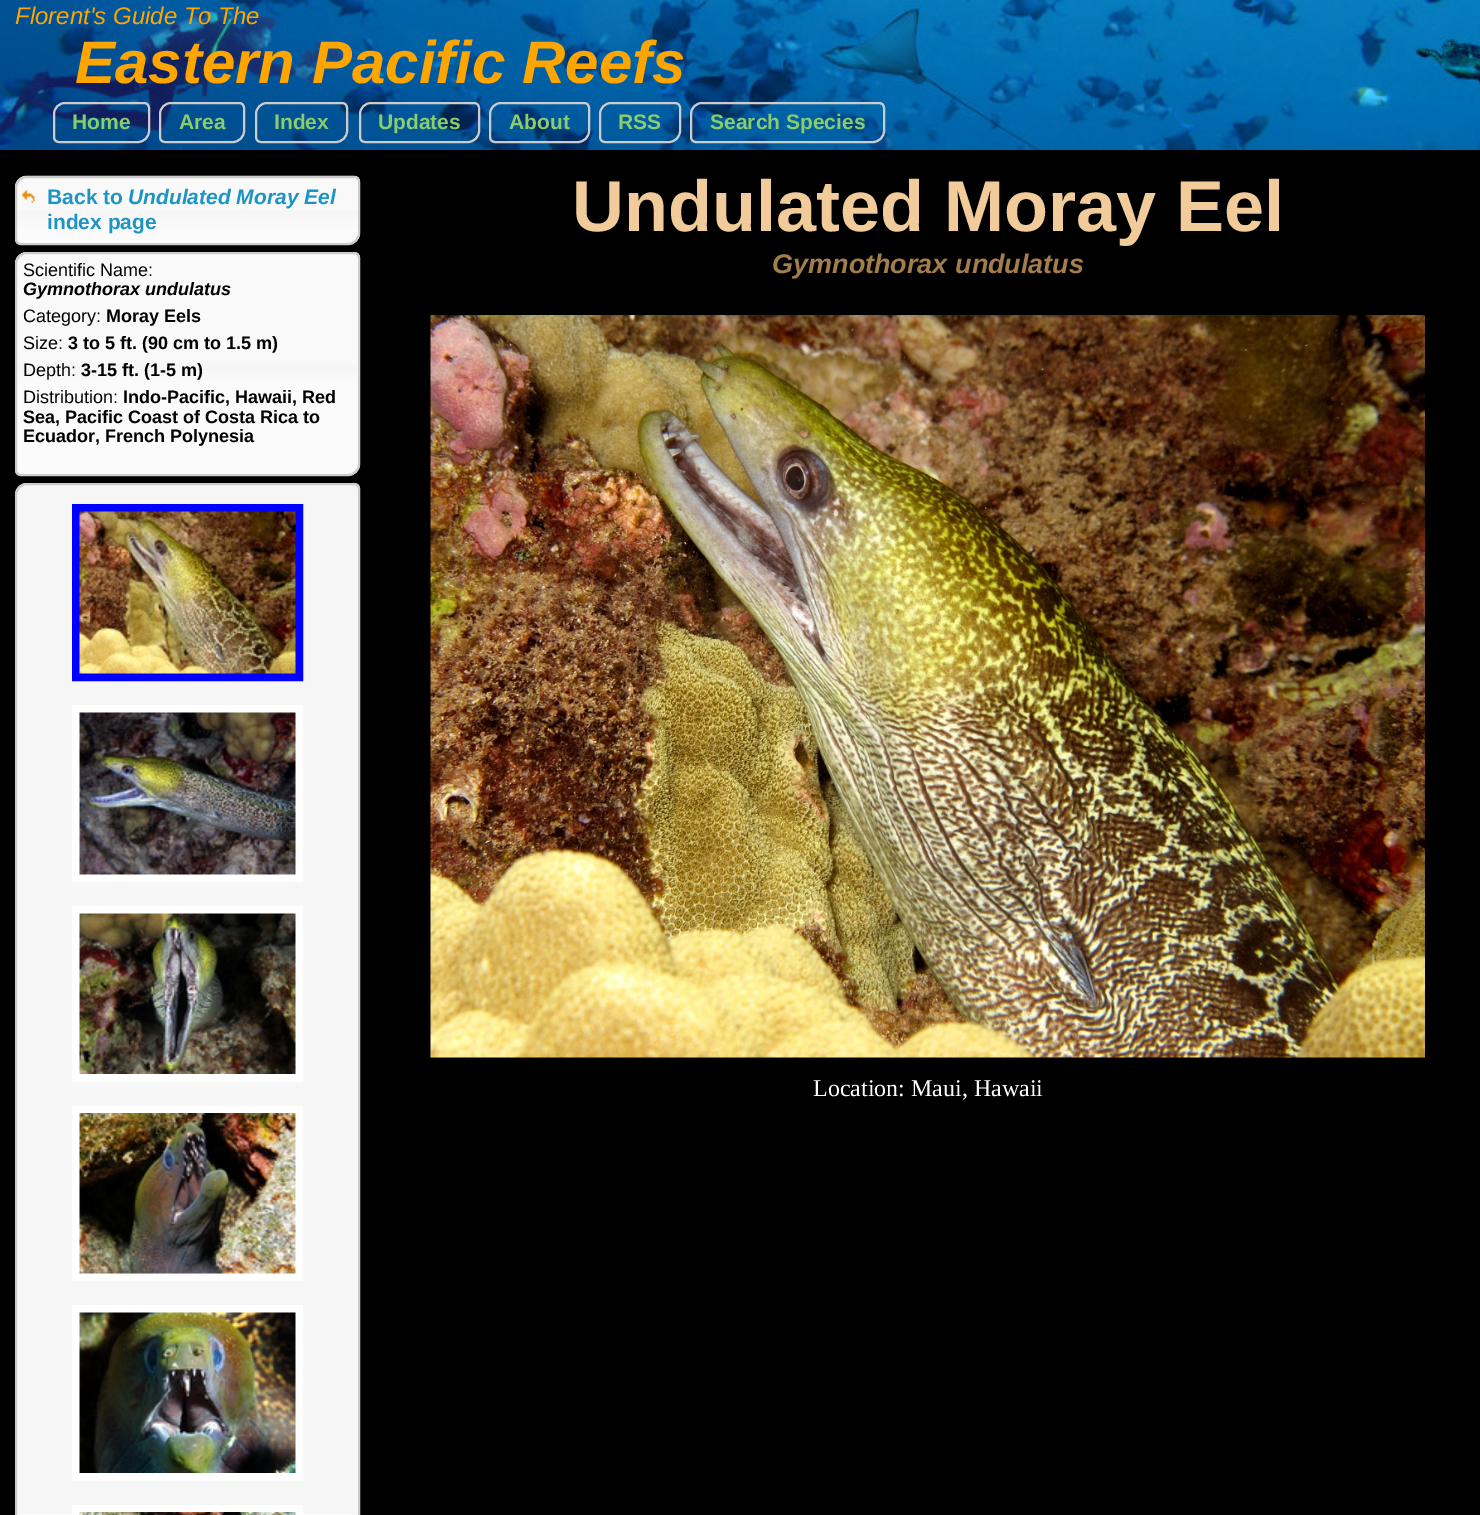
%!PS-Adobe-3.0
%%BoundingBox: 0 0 1480 1515
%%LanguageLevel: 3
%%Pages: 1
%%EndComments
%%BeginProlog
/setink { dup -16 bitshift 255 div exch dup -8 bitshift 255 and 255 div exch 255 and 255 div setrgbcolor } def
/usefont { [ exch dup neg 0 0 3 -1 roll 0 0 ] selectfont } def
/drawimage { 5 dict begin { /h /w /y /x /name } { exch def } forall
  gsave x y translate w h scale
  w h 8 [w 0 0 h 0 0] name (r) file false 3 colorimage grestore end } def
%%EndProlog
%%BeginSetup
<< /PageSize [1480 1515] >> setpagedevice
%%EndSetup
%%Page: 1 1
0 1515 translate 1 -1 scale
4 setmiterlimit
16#000000 setink
0 0 1480 1515 rectfill
(img1.raw) 0 0 1480 150 drawimage
/LiberationSans-Italic 24 usefont
16#FFA500 setink
15 24 moveto (Florent's Guide To The) show
/LiberationSans-BoldItalic 60 usefont
75 83 moveto (Eastern Pacific Reefs) show
16#CCCCCC setink
2 setlinewidth
65 103 moveto 144 103 lineto 147 103 149 105 149 108 curveto 149 131 lineto 149 137 144 142 138 142 curveto 59 142 lineto 56 142 54 140 54 137 curveto 54 114 lineto 54 108 59 103 65 103 curveto closepath stroke
/LiberationSans-Bold 21 usefont
16#8BCD6B setink
72 129 moveto (Home) show
16#CCCCCC setink
171 103 moveto 239 103 lineto 242 103 244 105 244 108 curveto 244 131 lineto 244 137 239 142 233 142 curveto 165 142 lineto 162 142 160 140 160 137 curveto 160 114 lineto 160 108 165 103 171 103 curveto closepath stroke
16#8BCD6B setink
179 129 moveto (Area) show
16#CCCCCC setink
267 103 moveto 342 103 lineto 345 103 347 105 347 108 curveto 347 131 lineto 347 137 342 142 336 142 curveto 261 142 lineto 258 142 256 140 256 137 curveto 256 114 lineto 256 108 261 103 267 103 curveto closepath stroke
16#8BCD6B setink
274 129 moveto (Index) show
16#CCCCCC setink
371 103 moveto 474 103 lineto 477 103 479 105 479 108 curveto 479 131 lineto 479 137 474 142 468 142 curveto 365 142 lineto 362 142 360 140 360 137 curveto 360 114 lineto 360 108 365 103 371 103 curveto closepath stroke
16#8BCD6B setink
378 129 moveto (Updates) show
16#CCCCCC setink
501 103 moveto 584 103 lineto 587 103 589 105 589 108 curveto 589 131 lineto 589 137 584 142 578 142 curveto 495 142 lineto 492 142 490 140 490 137 curveto 490 114 lineto 490 108 495 103 501 103 curveto closepath stroke
16#8BCD6B setink
509 129 moveto (About) show
16#CCCCCC setink
611 103 moveto 675 103 lineto 678 103 680 105 680 108 curveto 680 131 lineto 680 137 675 142 669 142 curveto 605 142 lineto 602 142 600 140 600 137 curveto 600 114 lineto 600 108 605 103 611 103 curveto closepath stroke
16#8BCD6B setink
618 129 moveto (RSS) show
16#CCCCCC setink
702 103 moveto 879 103 lineto 882 103 884 105 884 108 curveto 884 131 lineto 884 137 879 142 873 142 curveto 696 142 lineto 693 142 691 140 691 137 curveto 691 114 lineto 691 108 696 103 702 103 curveto closepath stroke
16#8BCD6B setink
710 129 moveto (Search Species) show
(img2.raw) 15 175 345 70 drawimage
16#CCCCCC setink
27 177 moveto 354 177 lineto 357 177 359 179 359 182 curveto 359 233 lineto 359 239 354 244 348 244 curveto 21 244 lineto 18 244 16 242 16 239 curveto 16 188 lineto 16 182 21 177 27 177 curveto closepath stroke
(img3.raw) 22 190 13 13 drawimage
16#1C94C4 setink
47 204 moveto (Back to) show
/LiberationSans-BoldItalic 21 usefont
128 204 moveto (Undulated Moray Eel) show
/LiberationSans-Bold 21 usefont
47 229 moveto (index page) show
(img4.raw) 15 252 345 224 drawimage
16#CCCCCC setink
27 253 moveto 354 253 lineto 357 253 359 255 359 258 curveto 359 464 lineto 359 470 354 475 348 475 curveto 21 475 lineto 18 475 16 473 16 470 curveto 16 264 lineto 16 258 21 253 27 253 curveto closepath stroke
/LiberationSans-Regular 18 usefont
16#000000 setink
23 276 moveto (Scientific Name:) show
/LiberationSans-BoldItalic 18 usefont
23 295 moveto (Gymnothorax undulatus) show
/LiberationSans-Regular 18 usefont
23 322 moveto (Category:) show
/LiberationSans-Bold 18 usefont
106 322 moveto (Moray Eels) show
/LiberationSans-Regular 18 usefont
23 349 moveto (Size:) show
/LiberationSans-Bold 18 usefont
68 349 moveto (3 to 5 ft. \(90 cm to 1.5 m\)) show
/LiberationSans-Regular 18 usefont
23 376 moveto (Depth:) show
/LiberationSans-Bold 18 usefont
81 376 moveto (3-15 ft. \(1-5 m\)) show
/LiberationSans-Regular 18 usefont
23 403 moveto (Distribution:) show
/LiberationSans-Bold 18 usefont
[
    [(Indo-Pacific, Hawaii, Red) 123 403]
    [(Sea, Pacific Coast of Costa Rica to) 23 423]
    [(Ecuador, French Polynesia) 23 442]
] { aload pop moveto show } forall
16#F6F6F6 setink
27 483 moveto 354 483 lineto 357.5 483 360 485.5 360 489 curveto 360 1515 lineto 360 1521.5 354.5 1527 348 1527 curveto 21 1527 lineto 17.5 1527 15 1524.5 15 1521 curveto 15 495 lineto 15 488.5 20.5 483 27 483 curveto closepath fill
16#FBFBFB setink
15 1514 345 1 rectfill
16#CCCCCC setink
27 484 moveto 354 484 lineto 357 484 359 486 359 489 curveto 359 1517 lineto 359 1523 354 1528 348 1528 curveto 21 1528 lineto 18 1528 16 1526 16 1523 curveto 16 495 lineto 16 489 21 484 27 484 curveto closepath stroke
16#0000FF setink
8 setlinewidth
76 508 223 169 rectstroke
(img5.raw) 79 511 217 163 drawimage
16#FFFFFF setink
76 709 223 169 rectstroke
(img6.raw) 79 712 217 163 drawimage
76 910 223 168 rectstroke
(img7.raw) 79 913 217 161 drawimage
76 1110 223 167 rectstroke
(img8.raw) 79 1113 217 161 drawimage
76 1309 223 168 rectstroke
(img9.raw) 79 1312 217 161 drawimage
76 1509 223 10 rectstroke
(img10.raw) 79 1512 217 3 drawimage
/LiberationSans-Bold 72 usefont
16#F1CB99 setink
572 231 moveto (Undulated Moray Eel) show
/LiberationSans-BoldItalic 27 usefont
16#A37D4C setink
772 273 moveto (Gymnothorax undulatus) show
(img11.raw) 430 315 995 743 drawimage
/LiberationSerif-Regular 24 usefont
16#FFFFFF setink
813 1096 moveto (Location: Maui, Hawaii) show
showpage
%%EOF
